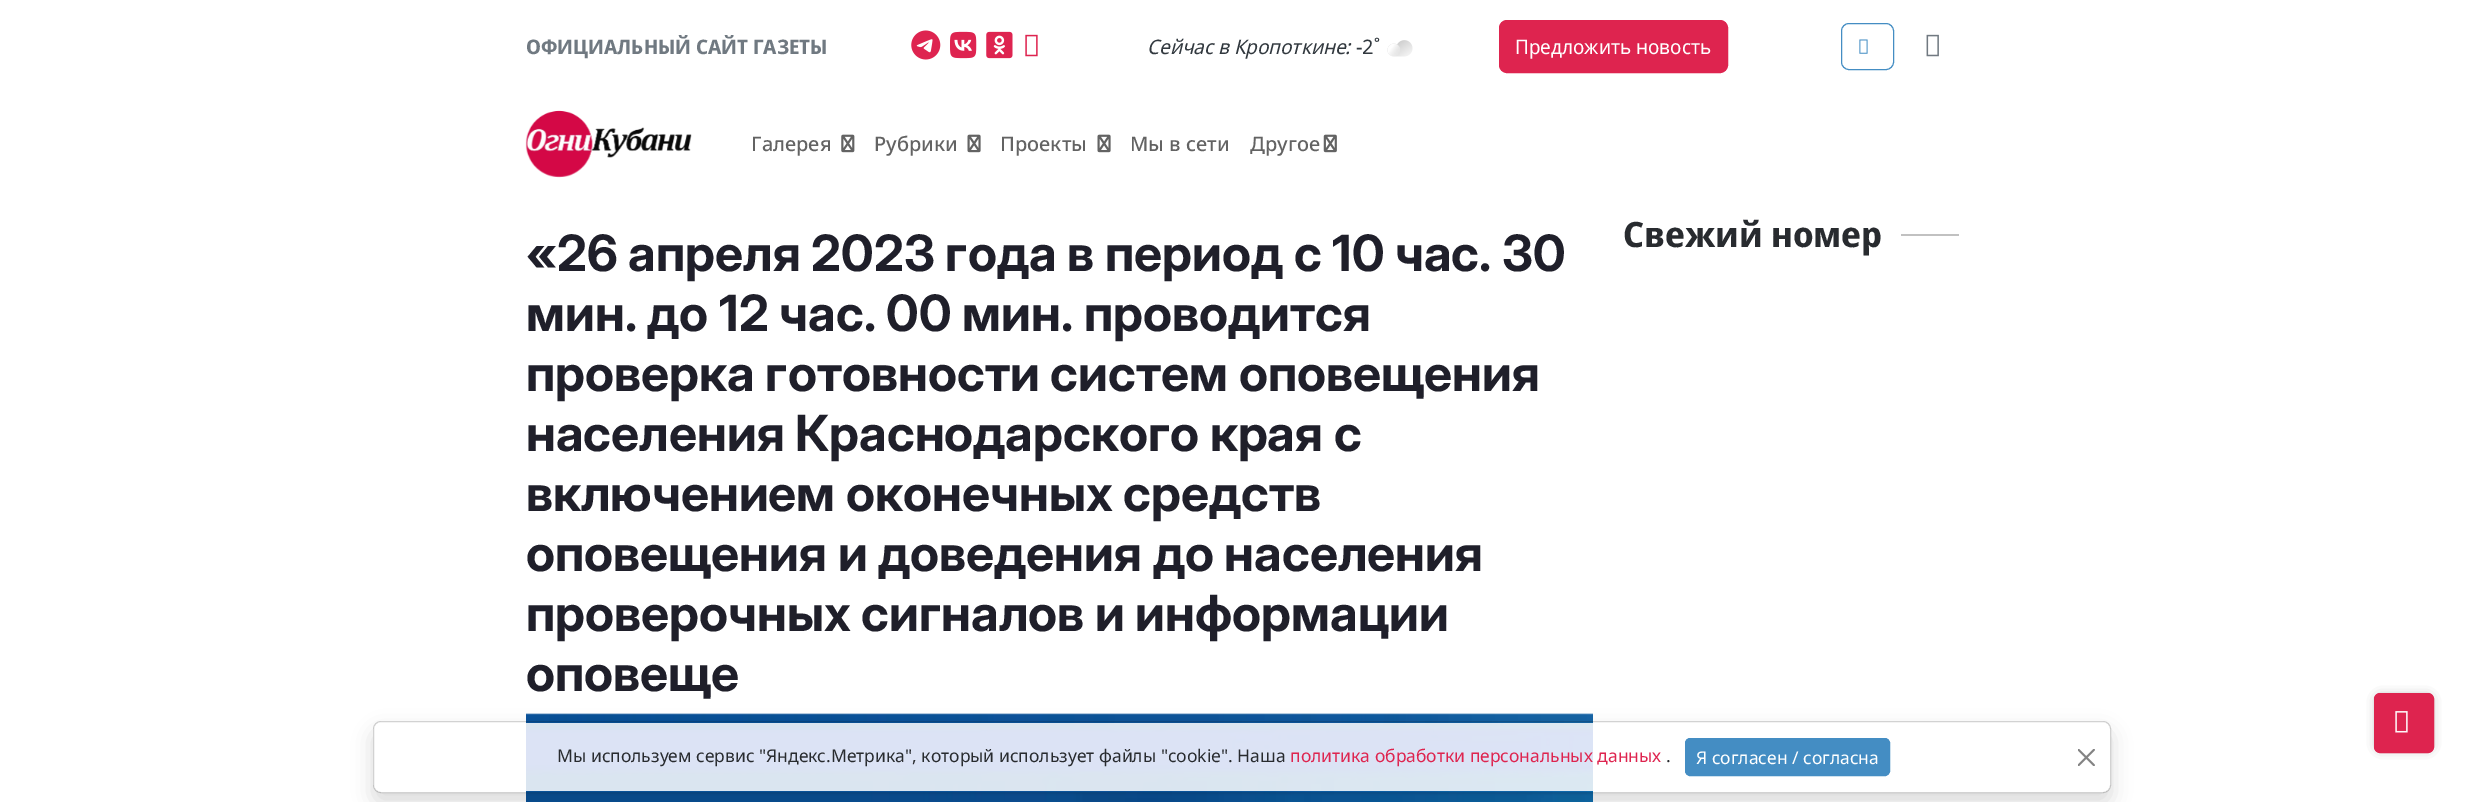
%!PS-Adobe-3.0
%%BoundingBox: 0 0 2483 802
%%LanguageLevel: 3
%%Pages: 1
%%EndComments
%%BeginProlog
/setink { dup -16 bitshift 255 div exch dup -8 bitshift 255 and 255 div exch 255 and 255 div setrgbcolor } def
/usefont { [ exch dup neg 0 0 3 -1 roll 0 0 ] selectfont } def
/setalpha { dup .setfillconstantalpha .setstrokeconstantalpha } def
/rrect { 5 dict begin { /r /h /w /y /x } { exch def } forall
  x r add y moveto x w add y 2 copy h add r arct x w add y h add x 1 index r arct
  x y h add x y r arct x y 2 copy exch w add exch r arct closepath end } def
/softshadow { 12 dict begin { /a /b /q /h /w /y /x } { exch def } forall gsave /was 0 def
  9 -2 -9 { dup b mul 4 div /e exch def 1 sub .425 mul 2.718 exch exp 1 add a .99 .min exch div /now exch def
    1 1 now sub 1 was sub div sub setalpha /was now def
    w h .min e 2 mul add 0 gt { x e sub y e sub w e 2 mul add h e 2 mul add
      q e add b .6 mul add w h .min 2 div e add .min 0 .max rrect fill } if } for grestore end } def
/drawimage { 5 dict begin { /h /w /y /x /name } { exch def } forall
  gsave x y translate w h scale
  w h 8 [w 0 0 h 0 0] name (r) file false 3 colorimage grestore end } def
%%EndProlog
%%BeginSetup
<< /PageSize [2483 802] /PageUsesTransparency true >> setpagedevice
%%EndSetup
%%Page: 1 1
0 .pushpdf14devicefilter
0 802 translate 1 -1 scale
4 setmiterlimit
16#FFFFFF setink
0 0 2483 802 rectfill
/NotoSansDisplay-Bold 20 usefont
16#707981 setink
526 54 moveto (ОФИЦИАЛЬНЫЙ САЙТ ГАЗЕТЫ) show
(img1.raw) 911 30 30 30 drawimage
(img2.raw) 950 31 27 28 drawimage
(img3.raw) 986 31 27 28 drawimage
(img4.raw) 1025 34 13 23 drawimage
/NotoSansDisplay-Italic 20 usefont
16#32393F setink
1147 54 moveto (Cейчас в Кропоткине:) show
/NotoSans-Regular 20 usefont
1356 54 moveto (-2˚) show
(img5.raw) 1387 40 26 17 drawimage
16#DE244F setink
1499.5 20.5 228 52 7.5 rrect gsave fill grestore
stroke
/NotoSansDisplay-Regular 20 usefont
16#FFFFFF setink
1515 54 moveto (Предложить новость) show
16#448DC3 setink
1841.5 23.5 52 46 7.5 rrect stroke
(img6.raw) 1859 39 9 15 drawimage
(img7.raw) 1926 34 13 23 drawimage
(img8.raw) 525 110 167 68 drawimage
/NotoSans-Medium 20 usefont
16#636363 setink
751 151 moveto (Галерея) show
(img9.raw) 841 134 14 19 drawimage
874 151 moveto (Рубрики) show
(img10.raw) 967 134 14 19 drawimage
1000 151 moveto (Проекты) show
(img10.raw) 1097 134 14 19 drawimage
1130 151 moveto (Мы в сети) show
1250 151 moveto (Другое) show
(img11.raw) 1323 134 14 19 drawimage
/Inter-Bold 50 usefont
16#1F1F2A setink
[
    [(«26 апреля 2023 года в период с 10 час. 30) 526 271]
    [(мин. до 12 час. 00 мин. проводится) 526 331]
    [(проверка готовности систем оповещения) 526 391]
    [(населения Краснодарского края с) 526 451]
    [(включением оконечных средств) 526 511]
    [(оповещения и доведения до населения) 526 571]
    [(проверочных сигналов и информации) 526 631]
    [(оповеще) 526 691]
] { aload pop moveto show } forall
(img12.raw) 526 713 1067 89 drawimage
/NotoSansDisplay-Bold 35 usefont
16#282B2F setink
1623 247 moveto (Свежий номер) show
16#C1C1C1 setink
1901 234 58 2 rectfill
gsave
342 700 moveto 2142 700 lineto 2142 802 lineto 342 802 lineto closepath 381 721 moveto 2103 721 lineto 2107.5 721 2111 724.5 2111 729 curveto 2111 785 lineto 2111 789.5 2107.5 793 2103 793 curveto 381 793 lineto 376.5 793 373 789.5 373 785 curveto 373 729 lineto 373 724.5 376.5 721 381 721 curveto closepath eoclip newpath
16#080808 setink
373 731 1738 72 8 10 0.15 softshadow
grestore
0.85 setalpha
16#FFFFFF setink
374 723 1736 68 6 rrect fill
0.18 setalpha
16#080808 setink
373.5 721.5 1737 71 7.5 rrect stroke
/NotoSans-Regular 17.5 usefont
1 setalpha
16#282B2F setink
557 762 moveto (Мы используем сервис "Яндекс.Метрика", который использует файлы "cookie". Наша) show
16#DE244F setink
1290 762 moveto (политика обработки персональных данных) show
16#282B2F setink
1666 762 moveto (.) show
16#448DC3 setink
1685.5 738.5 204 37 4.5 rrect gsave fill grestore
stroke
16#FFFFFF setink
1696 764 moveto (Я согласен / согласна) show
(img13.raw) 2078 749 17 17 drawimage
16#080808 setink
2380 699 48 47 0 6 0.62 softshadow
16#DE244F setink
2374.5 693.5 59 59 5.5 rrect gsave fill grestore
stroke
(img14.raw) 2395 711 13 22 drawimage
.poppdf14devicefilter showpage
%%EOF
